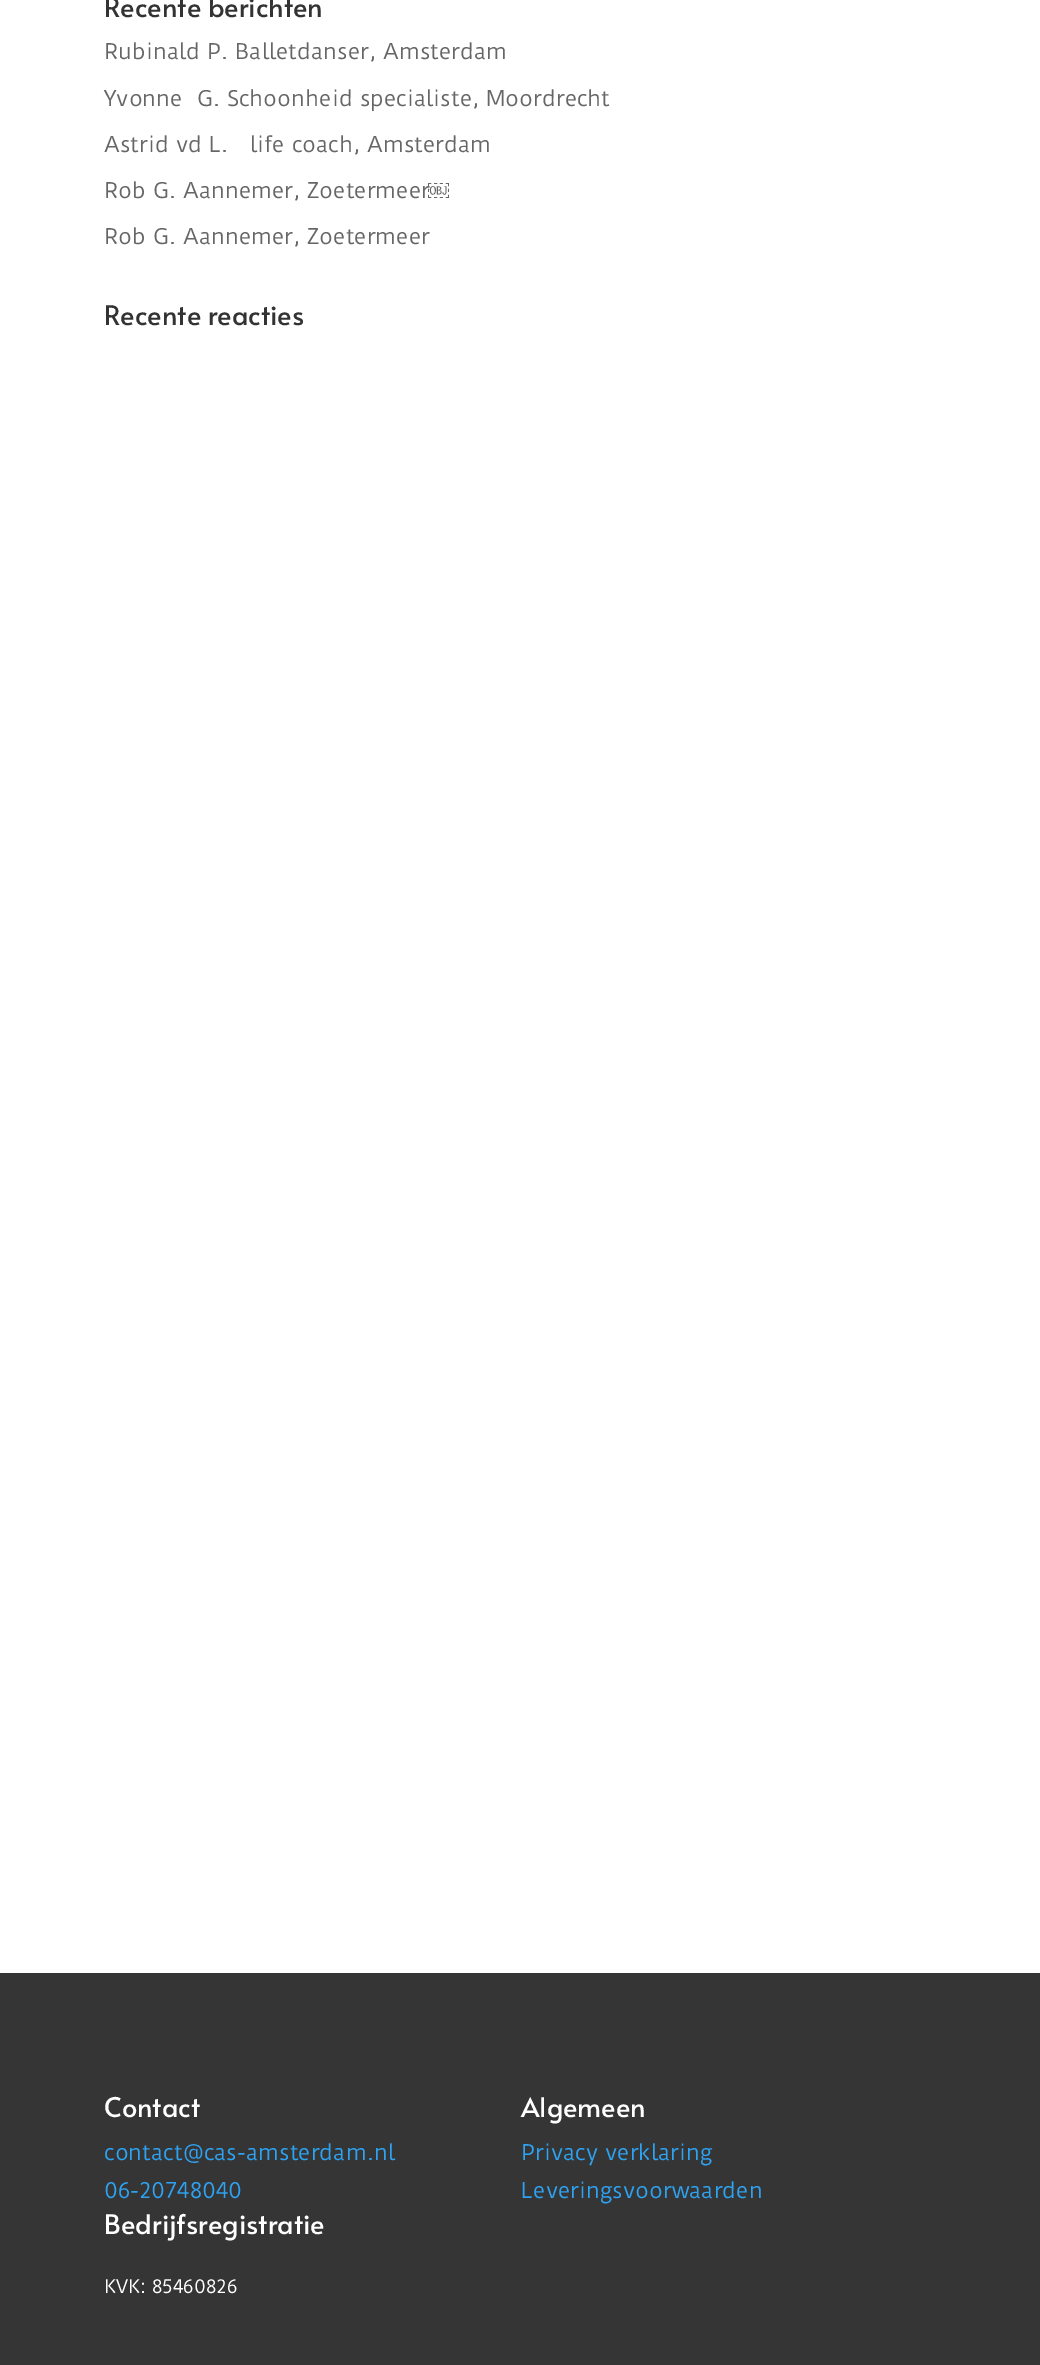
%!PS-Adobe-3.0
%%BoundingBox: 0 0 1040 2365
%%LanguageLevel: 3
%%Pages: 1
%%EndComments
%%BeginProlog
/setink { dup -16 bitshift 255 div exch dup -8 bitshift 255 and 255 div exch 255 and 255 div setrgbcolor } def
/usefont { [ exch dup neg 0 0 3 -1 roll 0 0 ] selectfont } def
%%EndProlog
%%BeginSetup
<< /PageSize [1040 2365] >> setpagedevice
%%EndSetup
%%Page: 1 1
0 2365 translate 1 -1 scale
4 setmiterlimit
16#FFFFFF setink
0 0 1040 2365 rectfill
/Alata-Regular 27 usefont
16#333333 setink
104 17 moveto (Recente berichten) show
/DuruSans-Regular 21 usefont
16#666666 setink
[
    [(Rubinald P. Balletdanser, Amsterdam) 104 59]
    [(Yvonne  G. Schoonheid specialiste, Moordrecht) 104 106]
    [(Astrid vd L.   life coach, Amsterdam) 104 152]
    [(Rob G. Aannemer, Zoetermeer) 104 198]
] { aload pop moveto show } forall
/LiberationSans-Regular 21 usefont
428 198 moveto (￼) show
/DuruSans-Regular 21 usefont
104 244 moveto (Rob G. Aannemer, Zoetermeer) show
/Alata-Regular 27 usefont
16#333333 setink
104 325 moveto (Recente reacties) show
16#353535 setink
0 1973 1040 392 rectfill
16#FFFFFF setink
104 2117 moveto (Contact) show
/DuruSans-Regular 21 usefont
16#2EA3F2 setink
104 2160 moveto (contact@cas-amsterdam.nl) show
104 2198 moveto (06-20748040) show
/Alata-Regular 27 usefont
16#FFFFFF setink
521 2117 moveto (Algemeen) show
/DuruSans-Regular 21 usefont
16#2EA3F2 setink
521 2160 moveto (Privacy verklaring) show
521 2198 moveto (Leveringsvoorwaarden) show
/Alata-Regular 27 usefont
16#FFFFFF setink
104 2234 moveto (Bedrijfsregistratie) show
/DuruSans-Regular 18 usefont
104 2293 moveto (KVK: 85460826) show
showpage
%%EOF
